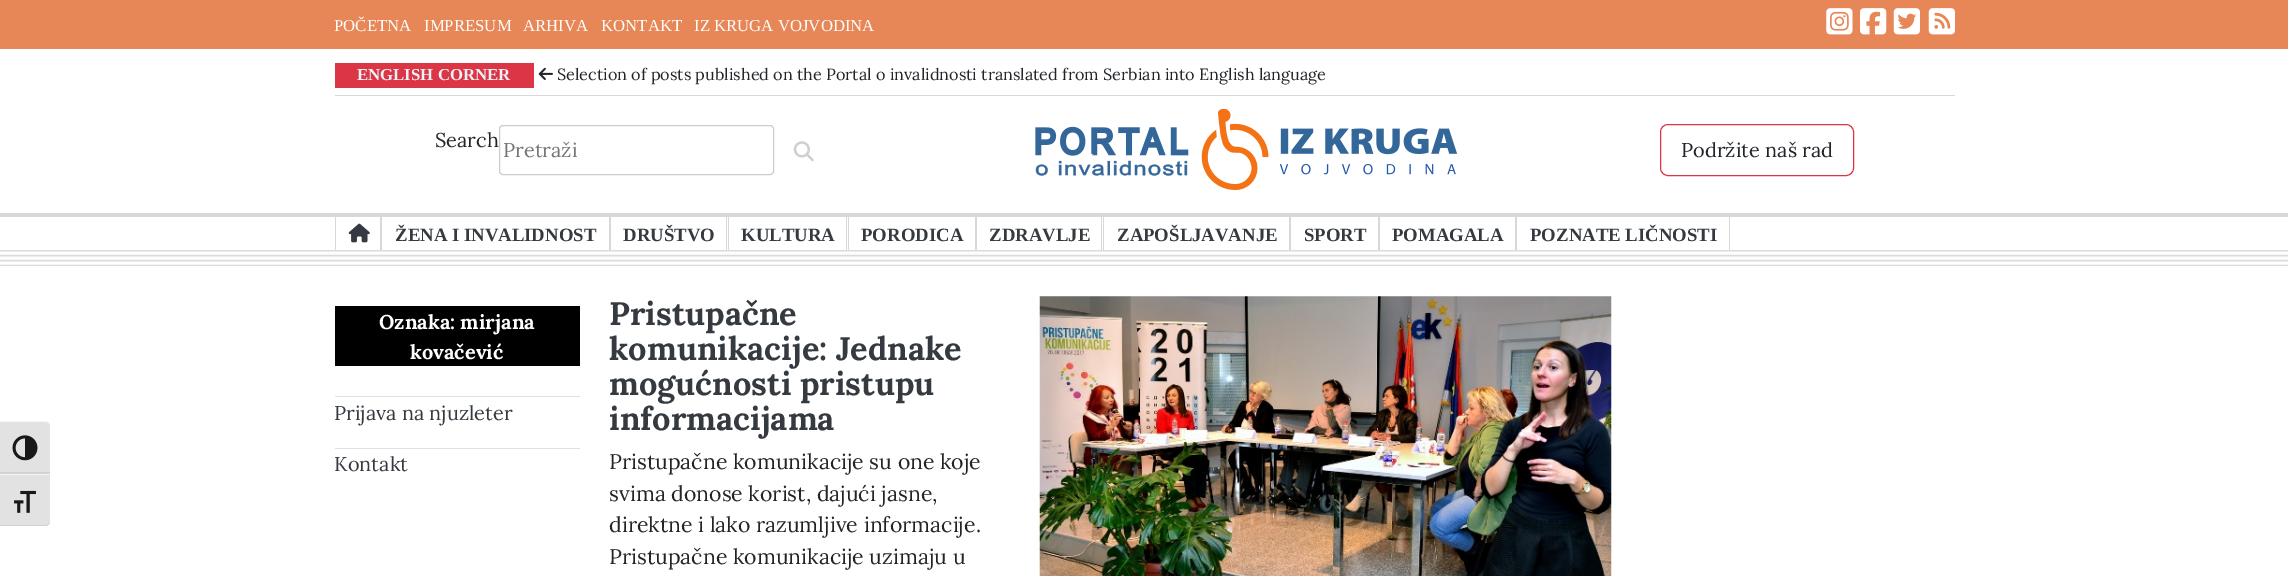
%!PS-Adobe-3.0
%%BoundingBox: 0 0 2288 576
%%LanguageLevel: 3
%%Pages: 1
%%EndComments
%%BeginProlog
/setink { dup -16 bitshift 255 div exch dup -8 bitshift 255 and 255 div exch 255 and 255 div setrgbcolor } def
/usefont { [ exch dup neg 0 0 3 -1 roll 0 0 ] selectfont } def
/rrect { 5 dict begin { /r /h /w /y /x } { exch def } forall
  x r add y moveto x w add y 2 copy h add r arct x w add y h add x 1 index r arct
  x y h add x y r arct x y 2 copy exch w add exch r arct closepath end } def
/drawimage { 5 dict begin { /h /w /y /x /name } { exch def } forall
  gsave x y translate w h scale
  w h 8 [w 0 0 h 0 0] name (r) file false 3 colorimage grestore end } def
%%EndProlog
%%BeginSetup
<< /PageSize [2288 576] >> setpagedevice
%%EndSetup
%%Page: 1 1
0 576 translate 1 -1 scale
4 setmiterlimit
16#FFFFFF setink
0 0 2288 576 rectfill
16#E2E2E2 setink
0 421 moveto 45 421 lineto 48 421 50 423 50 426 curveto 50 474 lineto 0 474 lineto closepath fill
16#F5F5F5 setink
0 422 moveto 45 422 lineto 48 422 50 424 50 426 curveto 50 424 49 422 47 421 curveto 0 421 lineto closepath fill
16#D2D2D2 setink
0 472 50 2 rectfill
(img1.raw) 12 435 26 26 drawimage
16#E2E2E2 setink
0 474 moveto 50 474 lineto 50 521 lineto 50 524 48 526 45 526 curveto 0 526 lineto closepath fill
16#F5F5F5 setink
0 474 50 1 rectfill
16#D2D2D2 setink
0 525 moveto 0 526 lineto 45 526 lineto 48 526 50 524 50 521 curveto 50 523 48 525 45 525 curveto closepath fill
(img2.raw) 14 490 22 23 drawimage
16#E78656 setink
0 0 2288 49 rectfill
/LiberationSerif-Regular 16.75 usefont
16#FFFFFF setink
[
    [(POČETNA) 334 31]
    [(IMPRESUM) 424 31]
    [(ARHIVA) 523 31]
    [(KONTAKT) 601 31]
    [(IZ KRUGA VOJVODINA) 694 31]
] { aload pop moveto show } forall
(img3.raw) 1826 8 27 27 drawimage
(img4.raw) 1860 8 27 27 drawimage
(img5.raw) 1893 8 27 27 drawimage
(img6.raw) 1928 8 27 27 drawimage
16#D8D8DA setink
335 95 1620 1 rectfill
16#DC3545 setink
335 63 199 25 rectfill
/LiberationSerif-Bold 16.75 usefont
16#EDF3F8 setink
357 80 moveto (ENGLISH CORNER) show
(img7.raw) 538 67 15 13 drawimage
/Lora-Regular 16.25 usefont
16#212529 setink
557 80 moveto (Selection of posts published on the Portal o invalidnosti translated from Serbian into English language) show
/Lora-Regular 20 usefont
435 147 moveto (Search) show
16#CCCCCC setink
499.5 125.5 274 49 3.5 rrect stroke
16#757575 setink
503 157 moveto (Pretraži) show
(img8.raw) 793 141 21 21 drawimage
(img9.raw) 1035 109 423 81 drawimage
16#DC3545 setink
1660.5 124.5 193 51 7.5 rrect stroke
16#212529 setink
1681 157 moveto (Podržite naš rad) show
[
    [0 213 2288 4 16#D8D8DA]
    [380 216 2 34 16#D8D8DA]
    [335 216 1 34 16#D8D8DA]
] { aload pop setink rectfill } forall
(img10.raw) 348 223 22 20 drawimage
609 216 2 34 rectfill
/LiberationSerif-Bold 18.75 usefont
16#343A40 setink
395 241 moveto (ŽENA I INVALIDNOST) show
16#D8D8DA setink
726 216 1 34 rectfill
16#343A40 setink
623 241 moveto (DRUŠTVO) show
16#D8D8DA setink
846 216 1 34 rectfill
728 216 1 34 rectfill
16#343A40 setink
741 241 moveto (KULTURA) show
16#D8D8DA setink
975 216 2 34 rectfill
848 216 1 34 rectfill
16#343A40 setink
861 241 moveto (PORODICA) show
16#D8D8DA setink
1101 216 1 34 rectfill
16#343A40 setink
989 241 moveto (ZDRAVLJE) show
16#D8D8DA setink
1289 216 2 34 rectfill
1103 216 1 34 rectfill
16#343A40 setink
1117 241 moveto (ZAPOŠLJAVANJE) show
16#D8D8DA setink
1378 216 2 34 rectfill
16#343A40 setink
1304 241 moveto (SPORT) show
16#D8D8DA setink
1515 216 2 34 rectfill
16#343A40 setink
1392 241 moveto (POMAGALA) show
16#D8D8DA setink
1729 216 1 34 rectfill
16#343A40 setink
1530 241 moveto (POZNATE LIČNOSTI) show
gsave
0 250 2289 16 rectclip
16#DCDCDC setink
1.5 setlinewidth
0 250.5 moveto 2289 250.5 lineto stroke
grestore
16#DCDCDC setink
1.5 setlinewidth
0 255.5 moveto 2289 255.5 lineto stroke
0 260.5 moveto 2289 260.5 lineto stroke
gsave
0 250 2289 16 rectclip
0 265.5 moveto 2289 265.5 lineto stroke
grestore
16#000000 setink
335 306 245 60 rectfill
/Lora-Bold 20 usefont
16#FFFFFF setink
379 329 moveto (Oznaka: mirjana) show
410 359 moveto (kovačević) show
16#DEE2E6 setink
335 396 245 1 rectfill
/Lora-Regular 20 usefont
16#343A40 setink
334 420 moveto (Prijava na njuzleter) show
16#DEE2E6 setink
335 448 245 1 rectfill
16#343A40 setink
334 471 moveto (Kontakt) show
/Lora-Bold 32.5 usefont
[
    [(Pristupačne) 609 325]
    [(komunikacije: Jednake) 609 360]
    [(mogućnosti pristupu) 609 395]
    [(informacijama) 609 430]
] { aload pop moveto show } forall
/Lora-Regular 21.25 usefont
16#212529 setink
[
    [(Pristupačne komunikacije su one koje) 609 469]
    [(svima donose korist, dajući jasne,) 609 501]
    [(direktne i lako razumljive informacije.) 609 532]
    [(Pristupačne komunikacije uzimaju u) 609 564]
] { aload pop moveto show } forall
(img11.raw) 1038 296 574 280 drawimage
showpage
%%EOF
